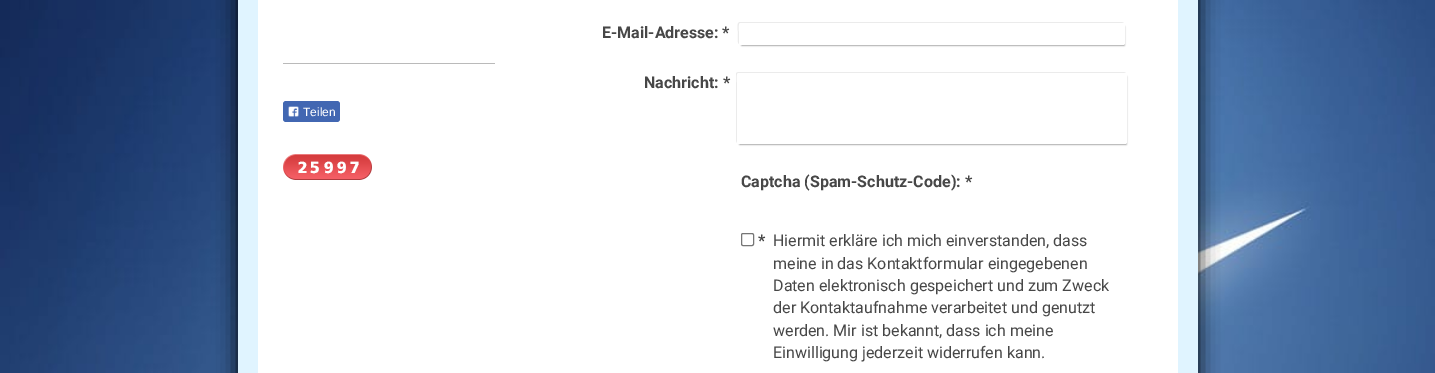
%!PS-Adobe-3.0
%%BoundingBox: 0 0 1435 373
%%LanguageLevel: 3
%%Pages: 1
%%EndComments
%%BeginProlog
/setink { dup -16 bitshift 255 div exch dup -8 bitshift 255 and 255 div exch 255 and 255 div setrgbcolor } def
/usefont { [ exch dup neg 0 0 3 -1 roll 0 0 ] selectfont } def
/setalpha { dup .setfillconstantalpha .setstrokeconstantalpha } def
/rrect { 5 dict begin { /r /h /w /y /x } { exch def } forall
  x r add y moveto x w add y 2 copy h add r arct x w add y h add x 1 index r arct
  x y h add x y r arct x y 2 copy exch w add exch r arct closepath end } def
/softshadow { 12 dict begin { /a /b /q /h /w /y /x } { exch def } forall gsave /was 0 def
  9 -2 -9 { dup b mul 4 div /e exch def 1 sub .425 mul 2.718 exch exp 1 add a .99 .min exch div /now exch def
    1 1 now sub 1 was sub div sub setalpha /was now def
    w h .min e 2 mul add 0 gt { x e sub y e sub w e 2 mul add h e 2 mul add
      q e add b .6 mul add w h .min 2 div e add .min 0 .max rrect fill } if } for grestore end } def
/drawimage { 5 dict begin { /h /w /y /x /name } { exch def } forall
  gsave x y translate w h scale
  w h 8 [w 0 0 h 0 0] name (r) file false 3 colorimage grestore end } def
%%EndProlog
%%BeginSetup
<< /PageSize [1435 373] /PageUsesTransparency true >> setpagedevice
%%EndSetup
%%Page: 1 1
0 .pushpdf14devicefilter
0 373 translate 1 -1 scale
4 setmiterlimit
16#FFFFFF setink
0 0 1435 373 rectfill
(img1.raw) 0 0 1435 373 drawimage
16#000000 setink
238 -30 960 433 0 10 1 softshadow
[
    [238 0 960 373 16#E0F4FF]
    [258 0 920 373 16#FFFFFF]
    [283 63 212 1 16#BABABA]
] { aload pop setink rectfill } forall
16#4267B2 setink
283 101 57 21 3 rrect fill
(img2.raw) 288 106 11 11 drawimage
/LiberationSans-Regular 12 usefont
16#FFFFFF setink
303 116 moveto (Teilen) show
(img3.raw) 283 154 12 26 drawimage
(img4.raw) 295 154 13 26 drawimage
(img5.raw) 308 154 13 26 drawimage
(img6.raw) 321 154 13 26 drawimage
(img6.raw) 334 154 13 26 drawimage
(img7.raw) 347 154 13 26 drawimage
(img8.raw) 360 154 12 26 drawimage
16#EBEBEB setink
740 22 moveto 736 22 738 31 738 33 curveto 738 35 737 43 739 44 curveto 739 34 lineto 739 32 737 23 741 23 curveto 1124 23 lineto 1122 22 lineto closepath fill
16#000000 setink
742 27 382 18 0 1 0.8 softshadow
/Roboto-Bold 16 usefont
16#474747 setink
602 38 moveto (E-Mail-Adresse: *) show
16#FFFFFF setink
739 23 386 22 2 rrect fill
16#EBEBEB setink
738 72 moveto 736 73 lineto 736 141 lineto 737 143 lineto 737 86 lineto 737 82 735 73 739 73 curveto 1126 73 lineto 1124 72 lineto closepath fill
16#000000 setink
740 77 386 67 0 1 0.8 softshadow
16#474747 setink
644 88 moveto (Nachricht: *) show
16#FFFFFF setink
737 73 390 71 2 rrect fill
16#474747 setink
741 187 moveto (Captcha \(Spam-Schutz-Code\): *) show
16#767676 setink
741.5 233.5 12 12 1.5 rrect stroke
16#474747 setink
758 246 moveto (*) show
/Roboto-Regular 16 usefont
[
    [(Hiermit erkläre ich mich einverstanden, dass) 773 246]
    [(meine in das Kontaktformular eingegebenen) 773 269]
    [(Daten elektronisch gespeichert und zum Zweck) 773 291]
    [(der Kontaktaufnahme verarbeitet und genutzt) 773 313]
    [(werden. Mir ist bekannt, dass ich meine) 773 336]
    [(Einwilligung jederzeit widerrufen kann.) 773 358]
] { aload pop moveto show } forall
.poppdf14devicefilter showpage
%%EOF
